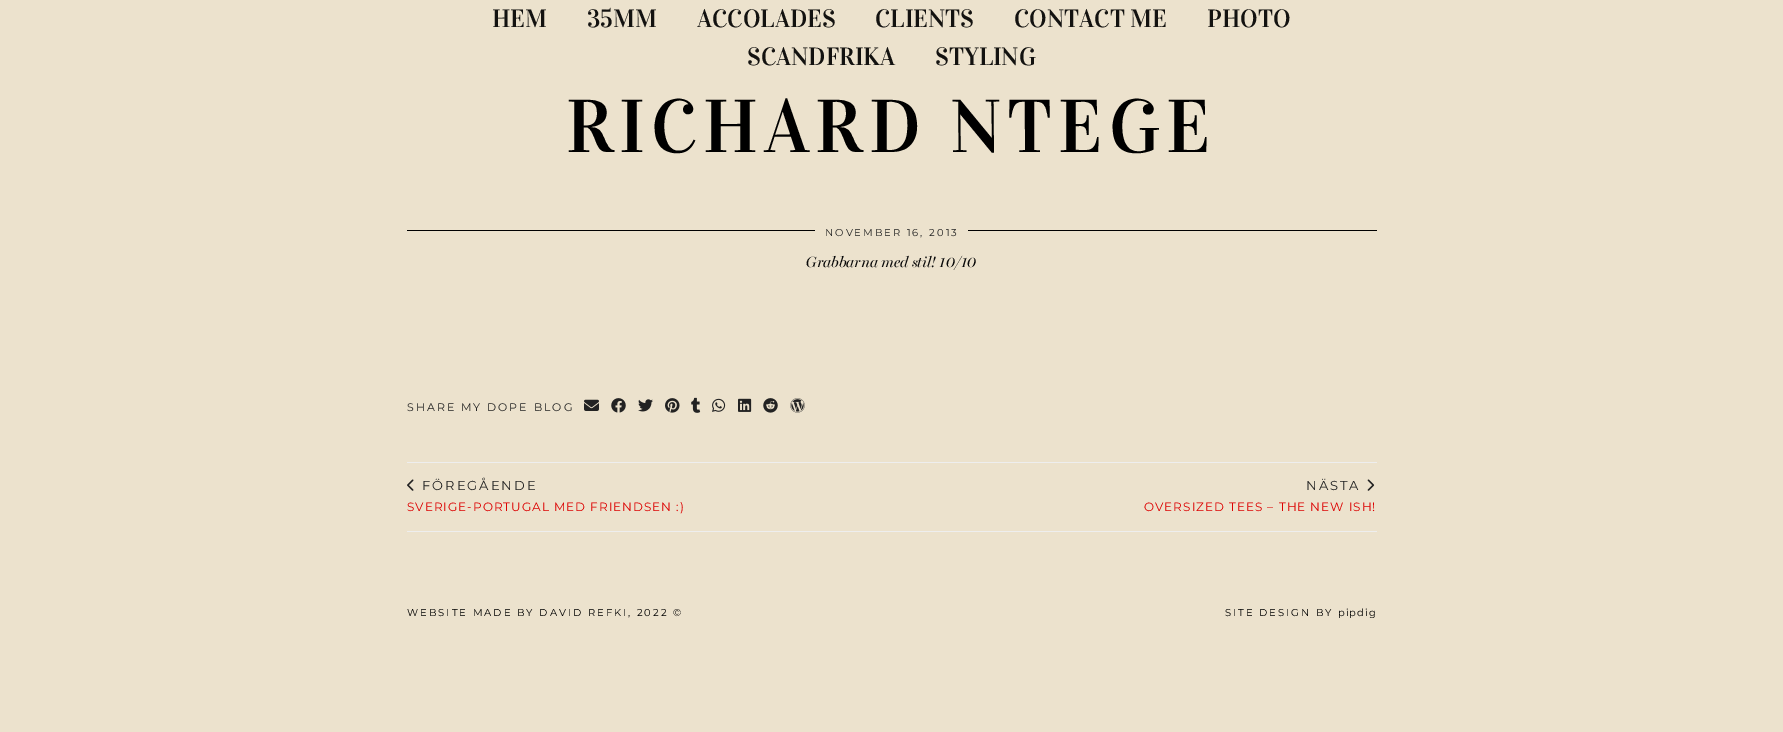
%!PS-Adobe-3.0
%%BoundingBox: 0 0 1783 732
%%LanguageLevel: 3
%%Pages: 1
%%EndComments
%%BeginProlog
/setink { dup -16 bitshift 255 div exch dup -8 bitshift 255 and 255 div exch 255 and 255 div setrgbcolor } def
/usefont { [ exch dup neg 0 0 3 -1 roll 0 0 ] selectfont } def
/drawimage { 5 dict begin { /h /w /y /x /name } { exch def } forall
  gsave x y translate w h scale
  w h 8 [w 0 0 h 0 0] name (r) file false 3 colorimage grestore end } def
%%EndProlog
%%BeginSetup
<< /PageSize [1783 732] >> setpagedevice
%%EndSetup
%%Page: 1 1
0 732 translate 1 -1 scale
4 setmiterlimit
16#ECE2CD setink
0 0 1783 732 rectfill
/Vidaloka-Regular 25 usefont
16#131210 setink
[
    [(HEM) 492 27]
    [(35MM) 587 27]
    [(ACCOLADES) 697 27]
    [(CLIENTS) 875 27]
    [(CONTACT ME) 1014 27]
    [(PHOTO) 1207 27]
    [(SCANDFRIKA) 747 65]
    [(STYLING) 935 65]
] { aload pop moveto show } forall
/Vidaloka-Regular 75 usefont
16#000000 setink
566 152 moveto 6 0 (RICHARD NTEGE) ashow
407 230 970 1 rectfill
16#ECE2CD setink
815 230 153 1 rectfill
/Montserrat-Thin 10 usefont
16#222222 setink
825 236 moveto 2 0 (NOVEMBER 16, 2013) ashow
/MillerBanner-Italic 15 usefont
16#0A0A0A setink
806 267 moveto (Grabbarna med stil! 10/10) show
/Montserrat-Thin 11 usefont
16#222222 setink
407 411 moveto 2 0 (SHARE MY DOPE BLOG) ashow
(img1.raw) 584 399 15 12 drawimage
(img2.raw) 611 398 15 15 drawimage
(img3.raw) 638 399 15 13 drawimage
(img4.raw) 665 398 15 15 drawimage
(img5.raw) 691 397 10 16 drawimage
(img6.raw) 712 398 14 14 drawimage
(img7.raw) 738 398 14 14 drawimage
(img8.raw) 763 398 15 15 drawimage
(img9.raw) 790 398 15 15 drawimage
16#EEEEEE setink
407 462 970 1 rectfill
407 531 970 1 rectfill
(img10.raw) 407 479 7 12 drawimage
/Montserrat-Thin 13 usefont
16#222222 setink
422 490 moveto 2 0 (FÖREGÅENDE) ashow
/Montserrat-Thin 12 usefont
16#DD0000 setink
407 511 moveto 1 0 (SVERIGE-PORTUGAL MED FRIENDSEN :\)) ashow
/Montserrat-Thin 13 usefont
16#222222 setink
1306 490 moveto 2 0 (NÄSTA) ashow
(img11.raw) 1367 479 8 12 drawimage
/Montserrat-Thin 12 usefont
16#DD0000 setink
1144 511 moveto 1 0 (OVERSIZED TEES – THE NEW ISH!) ashow
/Montserrat-Thin 10 usefont
16#000000 setink
407 616 moveto 2 0 (WEBSITE MADE BY DAVID REFKI, 2022 ©) ashow
1225 616 moveto 2 0 (SITE DESIGN BY) ashow
1338 616 moveto 1 0 (pipdig) ashow
showpage
%%EOF
